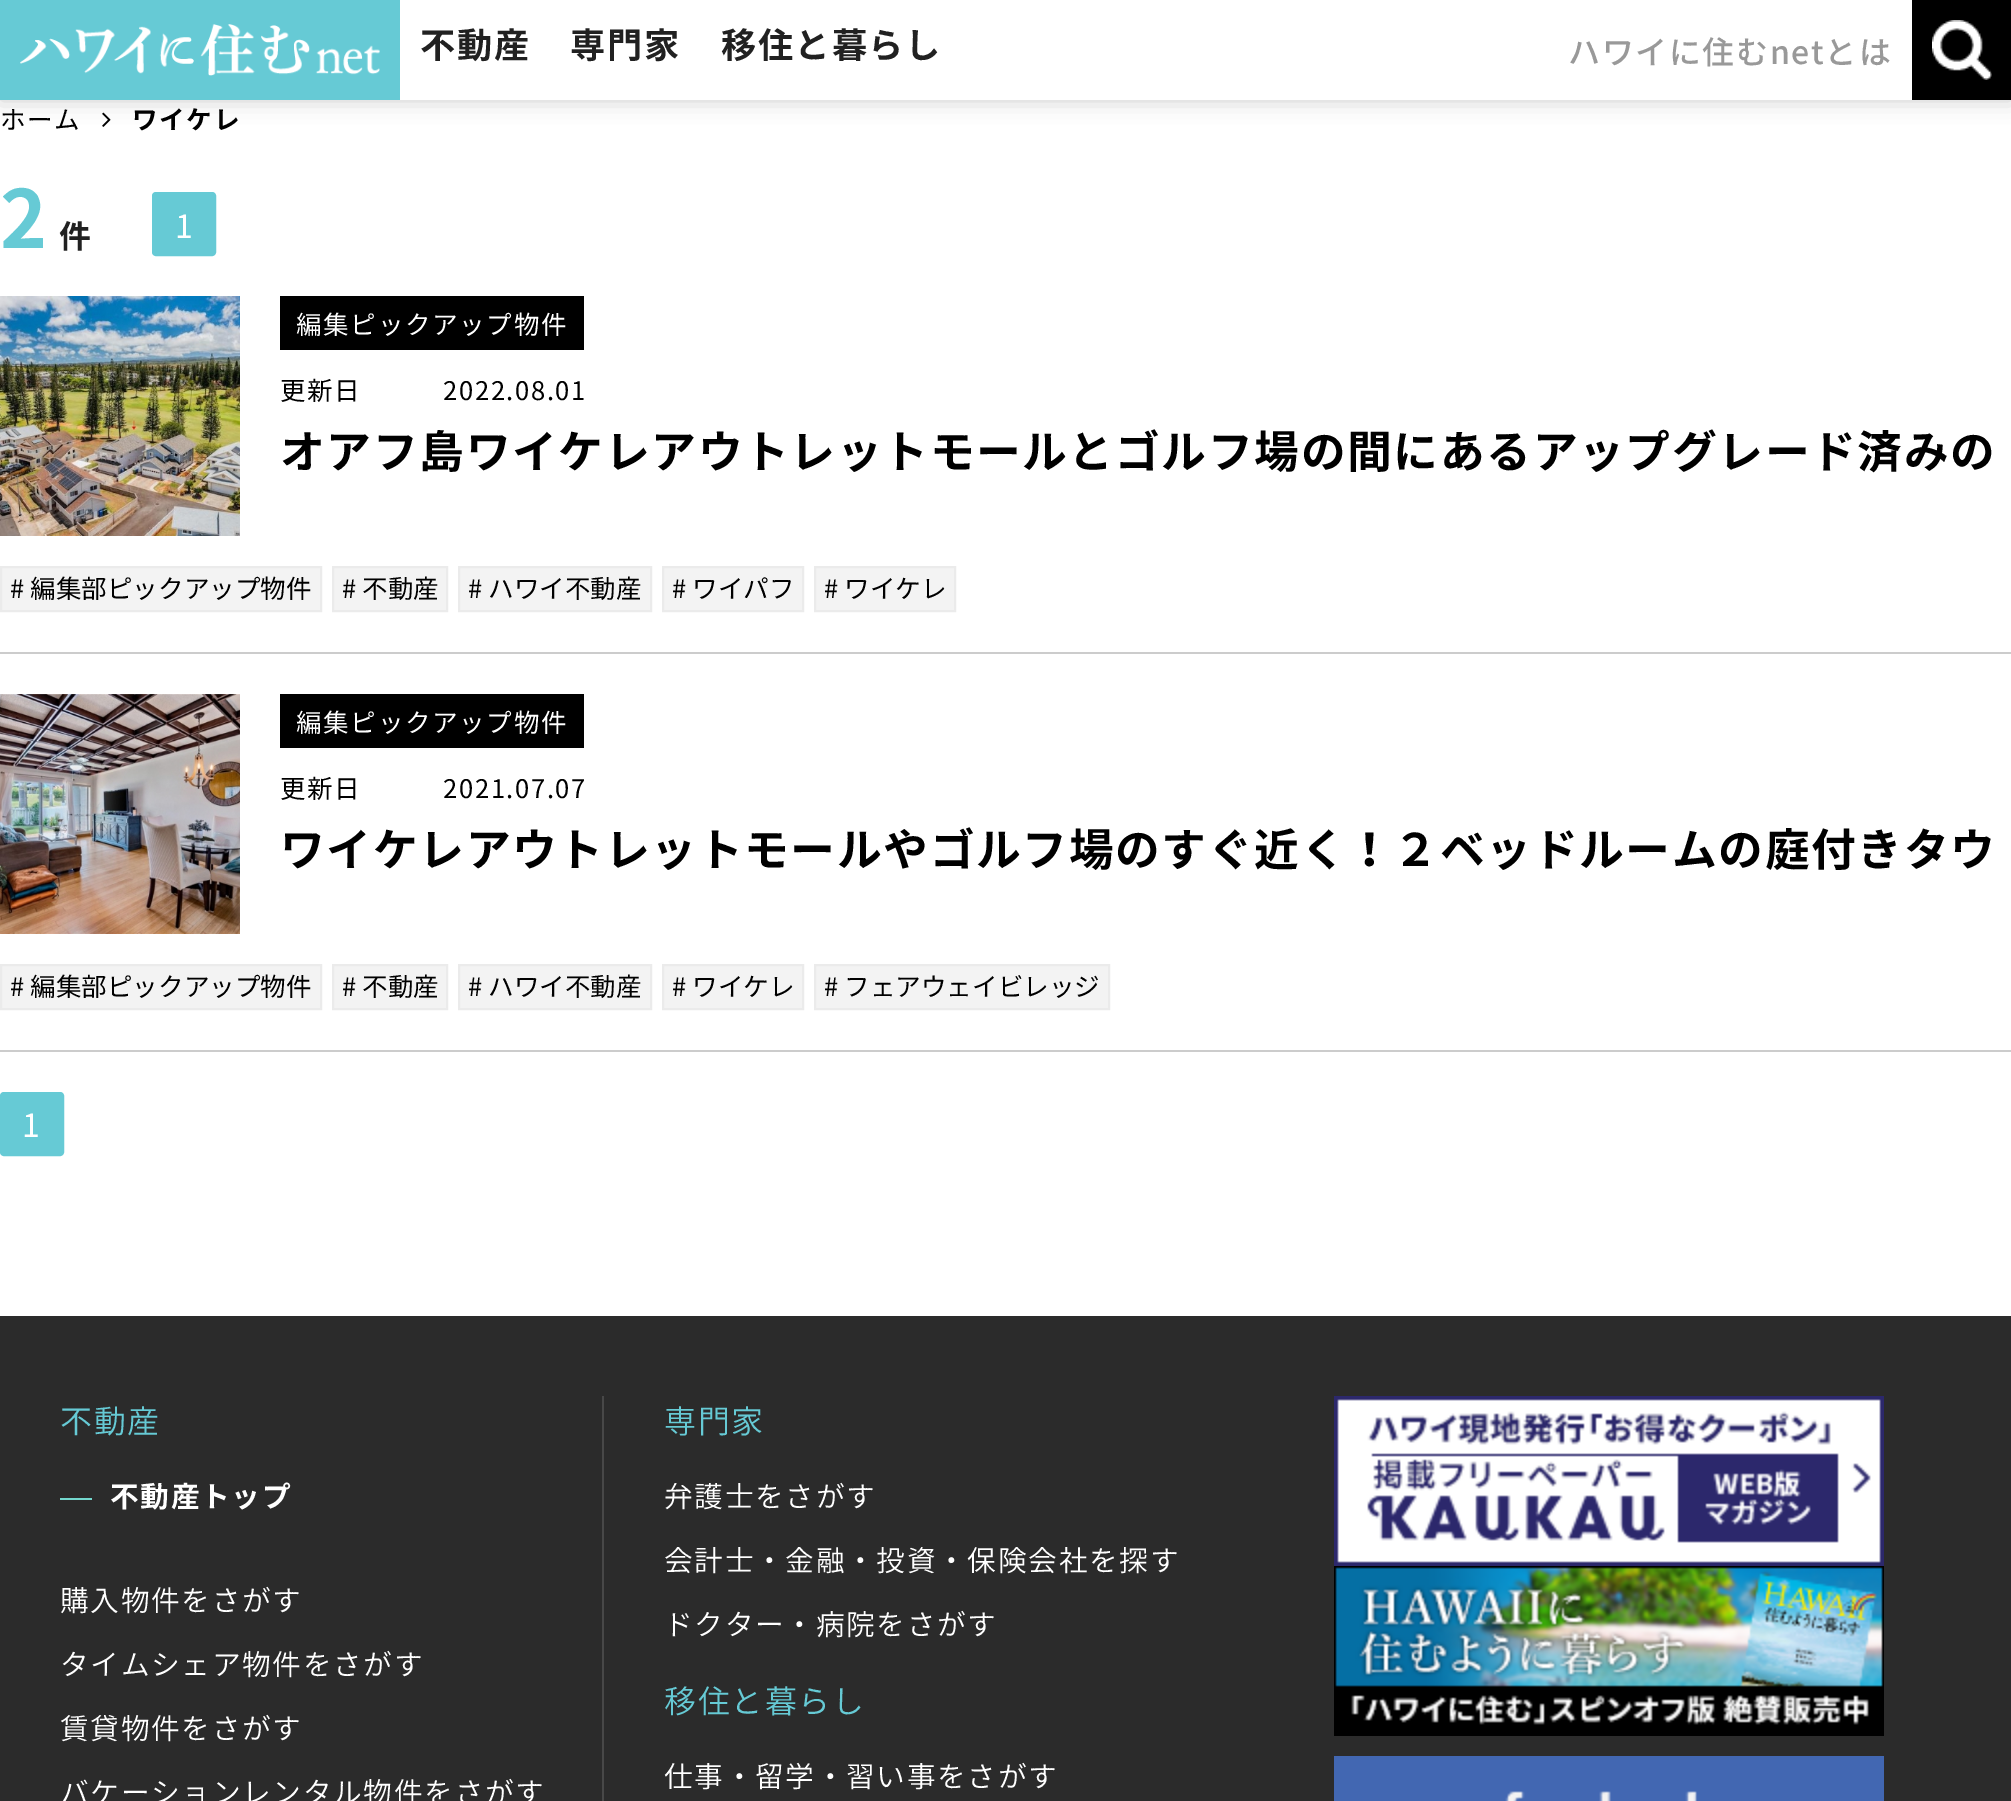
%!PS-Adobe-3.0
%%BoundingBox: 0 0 2011 1801
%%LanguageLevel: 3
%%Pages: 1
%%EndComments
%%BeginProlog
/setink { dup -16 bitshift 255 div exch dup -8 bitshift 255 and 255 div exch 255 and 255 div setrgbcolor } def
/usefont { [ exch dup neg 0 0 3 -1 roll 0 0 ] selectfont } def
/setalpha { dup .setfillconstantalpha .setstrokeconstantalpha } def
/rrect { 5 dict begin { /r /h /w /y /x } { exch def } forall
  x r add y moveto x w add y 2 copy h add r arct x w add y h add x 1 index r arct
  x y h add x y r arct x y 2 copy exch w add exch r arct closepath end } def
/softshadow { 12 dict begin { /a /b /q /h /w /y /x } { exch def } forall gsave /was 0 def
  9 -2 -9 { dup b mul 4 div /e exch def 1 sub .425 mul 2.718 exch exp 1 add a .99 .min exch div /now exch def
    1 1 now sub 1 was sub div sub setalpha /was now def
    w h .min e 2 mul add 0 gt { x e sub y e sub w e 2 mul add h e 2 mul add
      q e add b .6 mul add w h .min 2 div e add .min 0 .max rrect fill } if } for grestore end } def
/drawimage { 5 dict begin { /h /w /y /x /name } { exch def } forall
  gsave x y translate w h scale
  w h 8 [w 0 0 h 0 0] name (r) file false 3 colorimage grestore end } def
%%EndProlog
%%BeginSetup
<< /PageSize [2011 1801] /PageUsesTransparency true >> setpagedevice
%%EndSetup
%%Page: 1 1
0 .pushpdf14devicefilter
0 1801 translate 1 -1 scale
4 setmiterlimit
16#FFFFFF setink
0 0 2011 1801 rectfill
(img3.raw) 102 112 9 15 drawimage
16#000000 setink
0 0 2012 100 0 11 0.2 softshadow
16#FFFFFF setink
400 0 1512 100 rectfill
16#66CAD5 setink
0 0 400 100 rectfill
(img1.raw) 20 24 360 52 drawimage
/NotoSansJP-Bold 35.25 usefont
16#212121 setink
420 58 moveto 1.6 0 (不動産) ashow
570 58 moveto 1.6 0 (専門家) ashow
721 58 moveto 1.6 0 (移住と暮らし) ashow
/NotoSansJP-Medium 32 usefont
16#999999 setink
1568 64 moveto 1.6 0 (ハワイに住むnetとは) ashow
16#000000 setink
1912 0 99 100 rectfill
(img2.raw) 1932 20 60 60 drawimage
/NotoSansJP-Regular 25.6 usefont
0 129 moveto 1.6 0 (ホーム) ashow
/NotoSansJP-Bold 25.6 usefont
132 129 moveto 1.6 0 (ワイケレ) ashow
/NotoSansJP-Bold 80 usefont
16#66CAD5 setink
0 248 moveto 1.6 0 (2) ashow
/NotoSansJP-Bold 32 usefont
16#212121 setink
59 248 moveto 1.6 0 (件) ashow
16#66CAD5 setink
154 194 60 60 2 rrect gsave fill grestore
4 setlinewidth
stroke
/NotoSansJP-Regular 32 usefont
16#FFFFFF setink
175 238 moveto 1.6 0 (1) ashow
16#CCCCCC setink
0 652 2011 2 rectfill
(img4.raw) 0 296 240 240 drawimage
16#000000 setink
280 296 304 54 rectfill
/NotoSansJP-Regular 25.6 usefont
16#FFFFFF setink
296 334 moveto 1.6 0 (編集ピックアップ物件) ashow
16#000000 setink
280 400 moveto 1.6 0 (更新日 2022.08.01) ashow
/NotoSansJP-Bold 44.8 usefont
280 468 moveto 1.6 0 (オアフ島ワイケレアウトレットモールとゴルフ場の間にあるアップグレード済みの) ashow
16#F3F3F3 setink
1 567 moveto 321 567 lineto 321 611 lineto 1 611 lineto closepath gsave fill grestore
16#EBEBEB setink
2 setlinewidth
stroke
/NotoSansJP-Regular 25.6 usefont
16#000000 setink
10 598 moveto (# 編集部ピックアップ物件) show
16#F3F3F3 setink
333 567 moveto 447 567 lineto 447 611 lineto 333 611 lineto closepath gsave fill grestore
16#EBEBEB setink
stroke
16#000000 setink
342 598 moveto (# 不動産) show
16#F3F3F3 setink
459 567 moveto 651 567 lineto 651 611 lineto 459 611 lineto closepath gsave fill grestore
16#EBEBEB setink
stroke
16#000000 setink
468 598 moveto (# ハワイ不動産) show
16#F3F3F3 setink
663 567 moveto 803 567 lineto 803 611 lineto 663 611 lineto closepath gsave fill grestore
16#EBEBEB setink
stroke
16#000000 setink
672 598 moveto (# ワイパフ) show
16#F3F3F3 setink
815 567 moveto 955 567 lineto 955 611 lineto 815 611 lineto closepath gsave fill grestore
16#EBEBEB setink
stroke
16#000000 setink
824 598 moveto (# ワイケレ) show
16#CCCCCC setink
0 1050 2011 2 rectfill
(img5.raw) 0 694 240 240 drawimage
16#000000 setink
280 694 304 54 rectfill
16#FFFFFF setink
296 732 moveto 1.6 0 (編集ピックアップ物件) ashow
16#000000 setink
280 798 moveto 1.6 0 (更新日 2021.07.07) ashow
/NotoSansJP-Bold 44.8 usefont
280 866 moveto 1.6 0 (ワイケレアウトレットモールやゴルフ場のすぐ近く！２ベッドルームの庭付きタウ) ashow
16#F3F3F3 setink
1 965 moveto 321 965 lineto 321 1009 lineto 1 1009 lineto closepath gsave fill grestore
16#EBEBEB setink
stroke
/NotoSansJP-Regular 25.6 usefont
16#000000 setink
10 996 moveto (# 編集部ピックアップ物件) show
16#F3F3F3 setink
333 965 moveto 447 965 lineto 447 1009 lineto 333 1009 lineto closepath gsave fill grestore
16#EBEBEB setink
stroke
16#000000 setink
342 996 moveto (# 不動産) show
16#F3F3F3 setink
459 965 moveto 651 965 lineto 651 1009 lineto 459 1009 lineto closepath gsave fill grestore
16#EBEBEB setink
stroke
16#000000 setink
468 996 moveto (# ハワイ不動産) show
16#F3F3F3 setink
663 965 moveto 803 965 lineto 803 1009 lineto 663 1009 lineto closepath gsave fill grestore
16#EBEBEB setink
stroke
16#000000 setink
672 996 moveto (# ワイケレ) show
16#F3F3F3 setink
815 965 moveto 1109 965 lineto 1109 1009 lineto 815 1009 lineto closepath gsave fill grestore
16#EBEBEB setink
stroke
16#000000 setink
824 996 moveto (# フェアウェイビレッジ) show
16#66CAD5 setink
2 1094 60 60 2 rrect gsave fill grestore
4 setlinewidth
stroke
/NotoSansJP-Regular 32 usefont
16#FFFFFF setink
22 1137 moveto 1.6 0 (1) ashow
16#2B2B2B setink
0 1316 2011 485 rectfill
16#484848 setink
602 1396 2 405 rectfill
/NotoSansJP-Light 32 usefont
16#66CAD5 setink
60 1433 moveto 1.6 0 (不動産) ashow
16#74D8CE setink
60 1498 32 2 rectfill
/NotoSansJP-Bold 28.75 usefont
16#FFFFFF setink
110 1507 moveto 1.6 0 (不動産トップ) ashow
/NotoSansJP-Light 28.75 usefont
60 1611 moveto 1.6 0 (購入物件をさがす) ashow
60 1675 moveto 1.6 0 (タイムシェア物件をさがす) ashow
60 1739 moveto 1.6 0 (賃貸物件をさがす) ashow
60 1803 moveto 1.6 0 (バケーションレンタル物件をさがす) ashow
/NotoSansJP-Light 32 usefont
16#66CAD5 setink
664 1433 moveto 1.6 0 (専門家) ashow
/NotoSansJP-Light 28.75 usefont
16#FFFFFF setink
664 1507 moveto 1.6 0 (弁護士をさがす) ashow
664 1571 moveto 1.6 0 (会計士・金融・投資・保険会社を探す) ashow
664 1635 moveto 1.6 0 (ドクター・病院をさがす) ashow
/NotoSansJP-Light 32 usefont
16#66CAD5 setink
664 1713 moveto 1.6 0 (移住と暮らし) ashow
/NotoSansJP-Light 28.75 usefont
16#FFFFFF setink
664 1787 moveto 1.6 0 (仕事・留学・習い事をさがす) ashow
(img6.raw) 1334 1396 550 170 drawimage
(img7.raw) 1334 1566 550 170 drawimage
(img8.raw) 1334 1756 550 45 drawimage
.poppdf14devicefilter showpage
%%EOF
